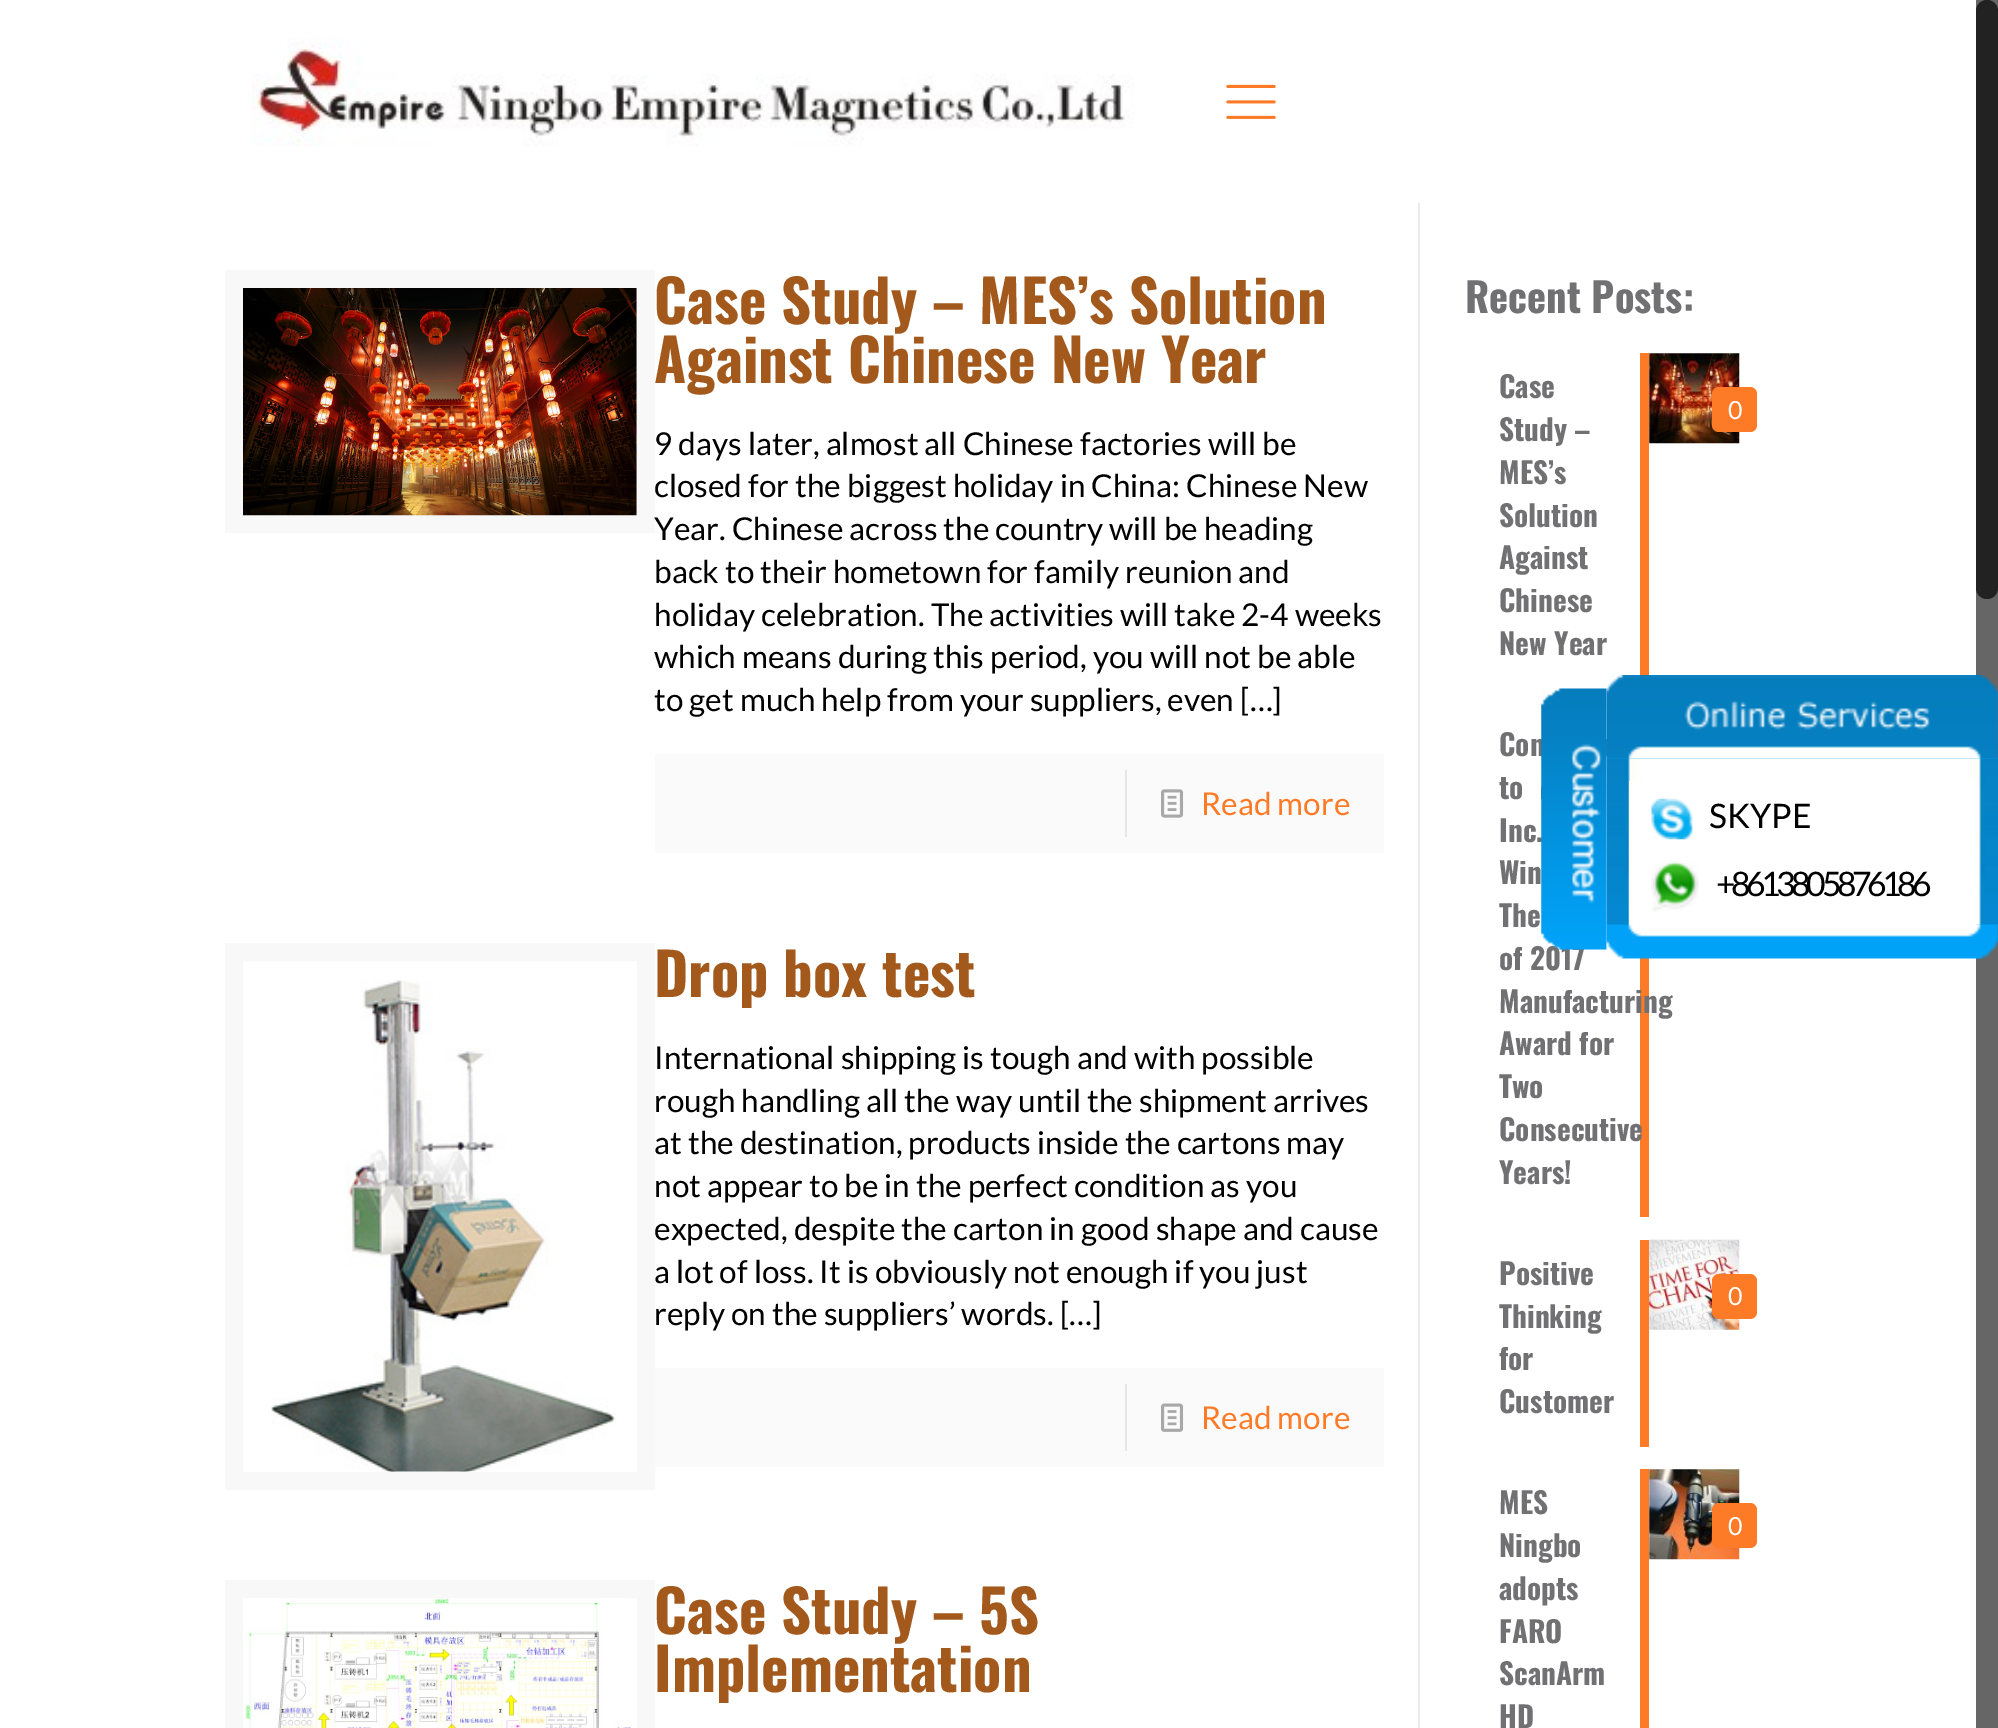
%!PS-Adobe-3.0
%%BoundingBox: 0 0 1998 1728
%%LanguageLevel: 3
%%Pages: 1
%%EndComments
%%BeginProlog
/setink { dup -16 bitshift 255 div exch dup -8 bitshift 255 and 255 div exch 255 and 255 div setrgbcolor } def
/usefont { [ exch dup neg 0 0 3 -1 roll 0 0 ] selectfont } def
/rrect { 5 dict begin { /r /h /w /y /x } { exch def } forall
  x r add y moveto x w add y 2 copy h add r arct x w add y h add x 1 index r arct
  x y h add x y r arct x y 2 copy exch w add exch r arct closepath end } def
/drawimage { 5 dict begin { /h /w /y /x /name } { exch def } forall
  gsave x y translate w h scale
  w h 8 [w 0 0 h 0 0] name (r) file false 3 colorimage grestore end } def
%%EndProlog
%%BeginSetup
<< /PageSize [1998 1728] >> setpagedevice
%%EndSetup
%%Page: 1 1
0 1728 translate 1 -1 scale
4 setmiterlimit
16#FFFFFF setink
0 0 1998 1728 rectfill
(img1.raw) 252 38 882 109 drawimage
(img2.raw) 1226 84 50 35 drawimage
16#F8F8F8 setink
18 setlinewidth
234 279 412 245 rectstroke
(img3.raw) 243 288 394 228 drawimage
/Oswald-Bold 58.5 usefont
16#A4591C setink
654 324 moveto (Case Study – MES’s Solution) show
654 383 moveto (Against Chinese New Year) show
/Lato-Regular 31.5 usefont
16#000000 setink
[
    [(9 days later, almost all Chinese factories will be) 654 455]
    [(closed for the biggest holiday in China: Chinese New) 654 497]
    [(Year. Chinese across the country will be heading) 654 540]
    [(back to their hometown for family reunion and) 654 583]
    [(holiday celebration. The activities will take 2-4 weeks) 654 626]
    [(which means during this period, you will not be able) 654 668]
    [(to get much help from your suppliers, even […]) 654 711]
] { aload pop moveto show } forall
16#FAFAFA setink
655 754 729 99 rectfill
16#E6E6E6 setink
1125 770 2 67 rectfill
(img4.raw) 1161 789 23 29 drawimage
16#FD7A27 setink
1201 815 moveto (Read more) show
16#F8F8F8 setink
234 952 412 529 rectstroke
(img5.raw) 271 980 345 492 drawimage
/Oswald-Bold 58.5 usefont
16#A4591C setink
654 997 moveto (Drop box test) show
/Lato-Regular 31.5 usefont
16#000000 setink
[
    [(International shipping is tough and with possible) 654 1069]
    [(rough handling all the way until the shipment arrives) 654 1112]
    [(at the destination, products inside the cartons may) 654 1154]
    [(not appear to be in the perfect condition as you) 654 1197]
    [(expected, despite the carton in good shape and cause) 654 1240]
    [(a lot of loss. It is obviously not enough if you just) 654 1283]
    [(reply on the suppliers’ words. […]) 654 1325]
] { aload pop moveto show } forall
16#FAFAFA setink
655 1368 729 99 rectfill
16#E6E6E6 setink
1125 1384 2 67 rectfill
(img6.raw) 1161 1403 23 29 drawimage
16#FD7A27 setink
1201 1429 moveto (Read more) show
16#F8F8F8 setink
234 1589 412 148 rectstroke
(img7.raw) 243 1598 388 130 drawimage
/Oswald-Bold 58.5 usefont
16#A4591C setink
654 1634 moveto (Case Study – 5S) show
654 1692 moveto (Implementation) show
16#EBEBEB setink
1418 203 2 1525 rectfill
/Oswald-Bold 40.5 usefont
16#717173 setink
1465 313 moveto (Recent Posts:) show
/Oswald-Bold 29.25 usefont
[
    [(Case) 1499 398]
    [(Study –) 1499 441]
    [(MES’s) 1499 484]
    [(Solution) 1499 527]
    [(Against) 1499 569]
    [(Chinese) 1499 612]
    [(New Year) 1499 655]
] { aload pop moveto show } forall
16#FD7A27 setink
1640 353 9 325 rectfill
(img8.raw) 1649 353 91 91 drawimage
1712 387 45 45 7 rrect fill
/Lato-Regular 25 usefont
16#FFFFFF setink
1728 419 moveto (0) show
/Oswald-Bold 29.25 usefont
16#717173 setink
[
    [(Con) 1499 756]
    [(to) 1499 799]
    [(Inc.) 1499 842]
    [(Win) 1499 884]
    [(The) 1499 927]
    [(of 2017) 1499 970]
] { aload pop moveto show } forall
16#FD7A27 setink
1640 758 9 459 rectfill
16#717173 setink
[
    [(Manufacturing) 1499 1013]
    [(Award for) 1499 1055]
    [(Two) 1499 1098]
    [(Consecutive) 1499 1141]
    [(Years!) 1499 1184]
] { aload pop moveto show } forall
(img9.raw) 1649 758 91 1 drawimage
[
    [(Positive) 1499 1285]
    [(Thinking) 1499 1328]
    [(for) 1499 1370]
    [(Customer) 1499 1413]
] { aload pop moveto show } forall
16#FD7A27 setink
1640 1240 9 207 rectfill
(img10.raw) 1649 1239 91 91 drawimage
1712 1274 45 45 7 rrect fill
/Lato-Regular 25 usefont
16#FFFFFF setink
1728 1305 moveto (0) show
/Oswald-Bold 29.25 usefont
16#717173 setink
[
    [(MES) 1499 1514]
    [(Ningbo) 1499 1557]
    [(adopts) 1499 1600]
    [(FARO) 1499 1643]
    [(ScanArm) 1499 1685]
    [(HD) 1499 1728]
] { aload pop moveto show } forall
16#FD7A27 setink
1640 1469 9 259 rectfill
(img11.raw) 1649 1469 91 91 drawimage
1712 1503 45 45 7 rrect fill
/Lato-Regular 25 usefont
16#FFFFFF setink
1728 1535 moveto (0) show
16#666666 setink
1976 0 22 1728 rectfill
(img13.raw) 1606 675 392 84 drawimage
(img14.raw) 1606 758 392 167 drawimage
16#FFFFFF setink
1629 781 347 144 rectfill
(img17.raw) 1606 924 392 35 drawimage
(img12.raw) 1541 688 67 262 drawimage
(img15.raw) 1651 798 42 42 drawimage
/Lato-Regular 33.75 usefont
16#000000 setink
1709 828 moveto (SKYPE) show
(img16.raw) 1651 861 48 51 drawimage
1716 896 moveto -4.5 0 (+8613805876186) ashow
16#222222 setink
1976 0 22 599 11 rrect fill
showpage
%%EOF
